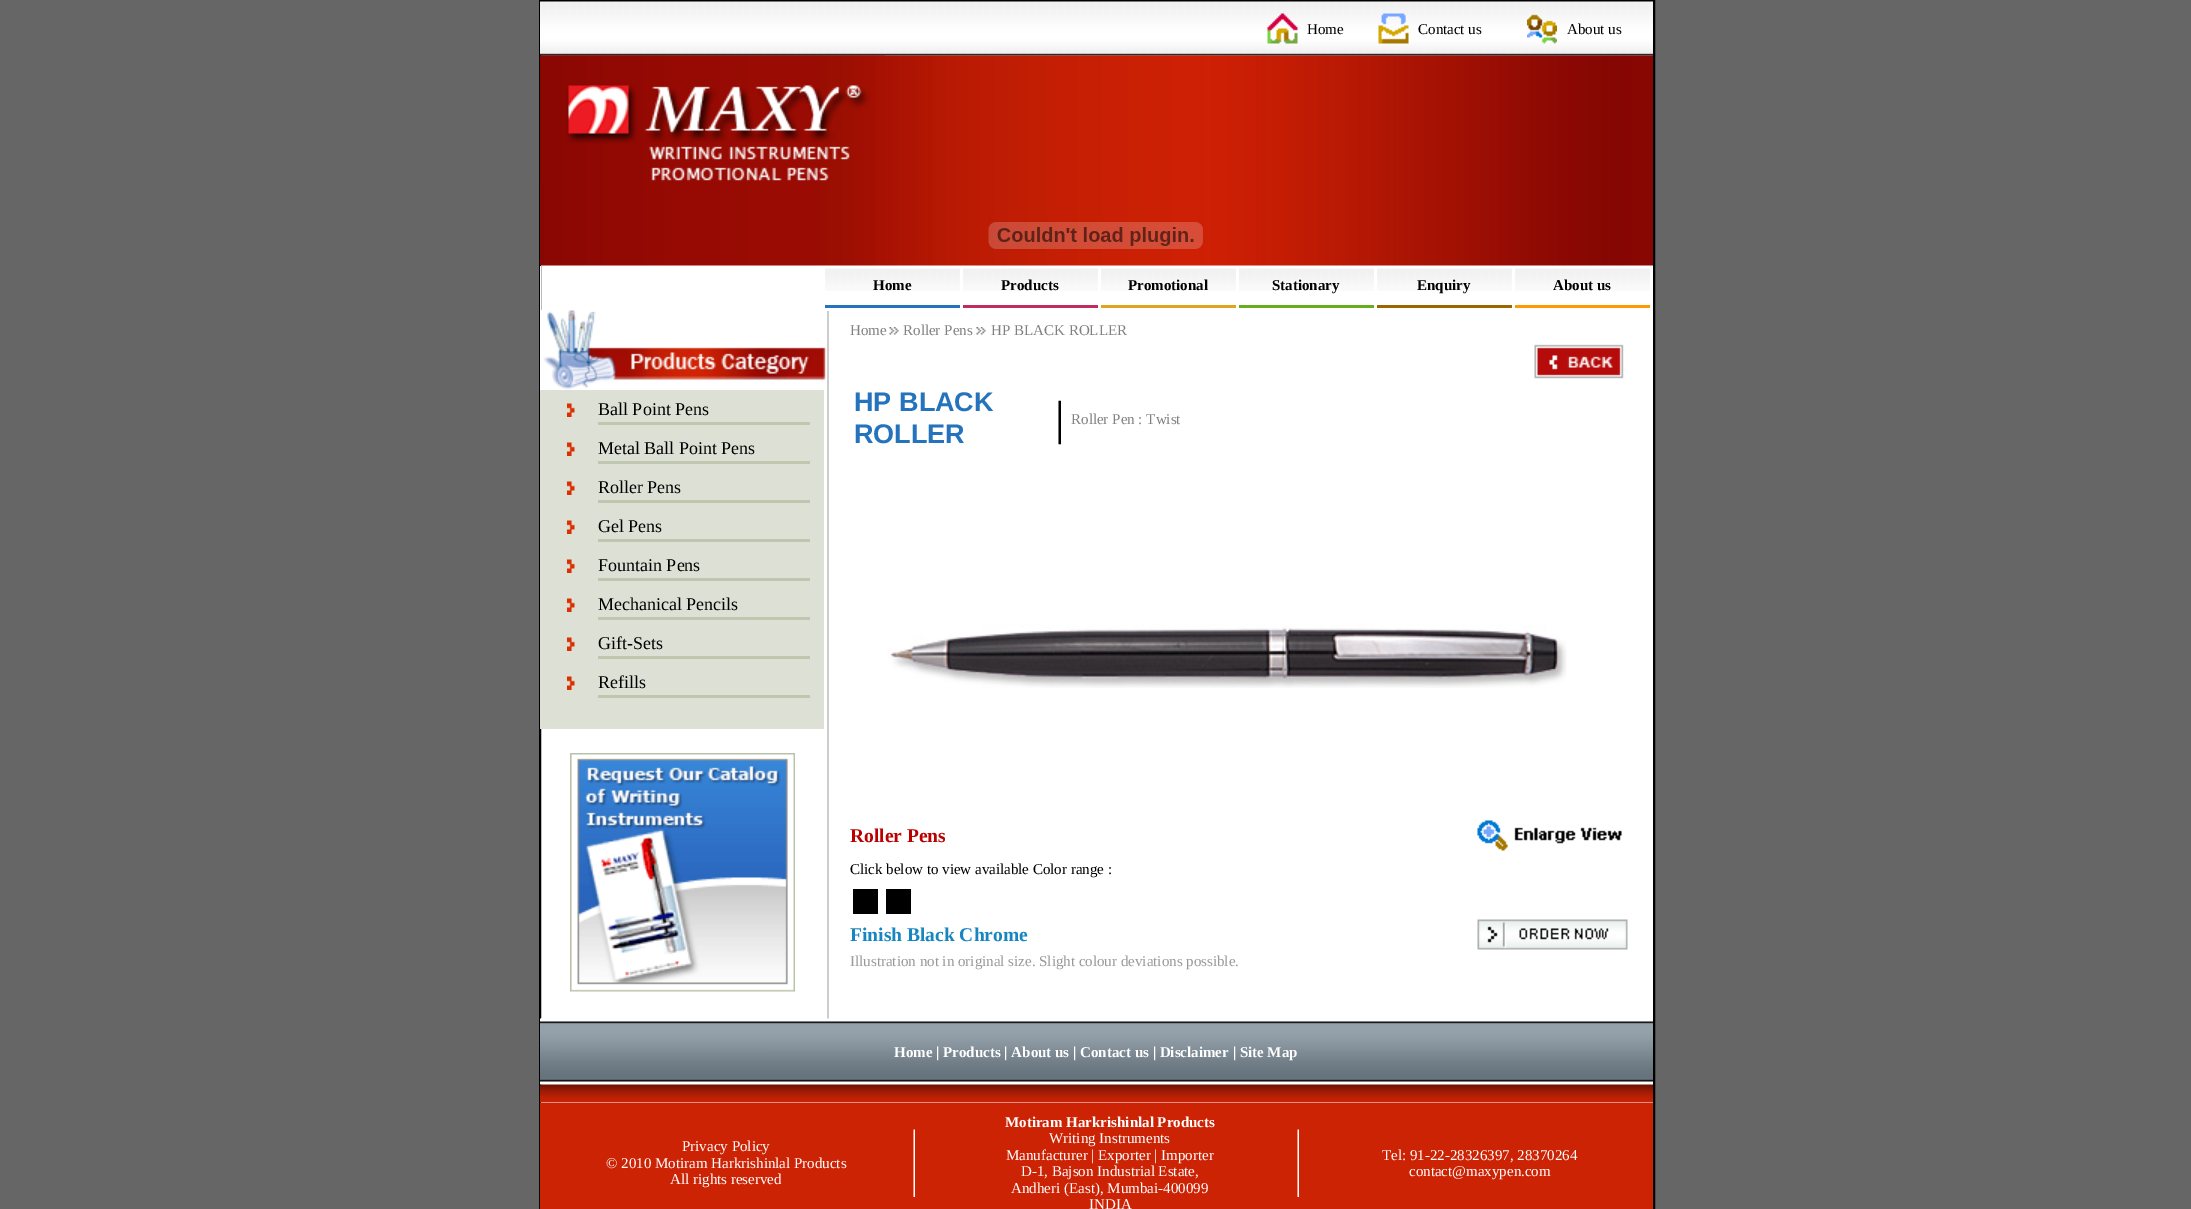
%!PS-Adobe-3.0
%%BoundingBox: 0 0 2191 1209
%%LanguageLevel: 3
%%Pages: 1
%%EndComments
%%BeginProlog
/setink { dup -16 bitshift 255 div exch dup -8 bitshift 255 and 255 div exch 255 and 255 div setrgbcolor } def
/usefont { [ exch dup neg 0 0 3 -1 roll 0 0 ] selectfont } def
/drawimage { 5 dict begin { /h /w /y /x /name } { exch def } forall
  gsave x y translate w h scale
  w h 8 [w 0 0 h 0 0] name (r) file false 3 colorimage grestore end } def
%%EndProlog
%%BeginSetup
<< /PageSize [2191 1209] >> setpagedevice
%%EndSetup
%%Page: 1 1
0 1209 translate 1 -1 scale
4 setmiterlimit
16#666666 setink
0 0 2191 1209 rectfill
16#FFFFFF setink
541 55 1112 1048 rectfill
16#000000 setink
2 setlinewidth
540 1 1114 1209 rectstroke
(img1.raw) 540 1 1113 55 drawimage
(img2.raw) 1267 13 31 31 drawimage
/LiberationSerif-Regular 15 usefont
1307 34 moveto (Home) show
(img3.raw) 1378 13 31 31 drawimage
1418 34 moveto (Contact us) show
(img4.raw) 1527 14 30 30 drawimage
1567 34 moveto (About us) show
(img5.raw) 540 55 1113 211 drawimage
(img6.raw) 540 55 345 126 drawimage
(img7.raw) 988 222 215 27 drawimage
16#FFFFFF setink
540 266 1 45 rectfill
(img8.raw) 825 268 135 23 drawimage
/LiberationSerif-Bold 15 usefont
16#000000 setink
873 290 moveto (Home) show
(img8.raw) 963 268 135 23 drawimage
1001 290 moveto (Products) show
(img8.raw) 1101 268 135 23 drawimage
1128 290 moveto (Promotional) show
(img8.raw) 1239 268 135 23 drawimage
1272 290 moveto (Stationary) show
(img8.raw) 1377 268 135 23 drawimage
1417 290 moveto (Enquiry) show
(img8.raw) 1515 268 135 23 drawimage
1553 290 moveto (About us) show
[
    [825 305 135 3 16#2473BC]
    [963 305 135 3 16#C22C5C]
    [1101 305 135 3 16#E2A41F]
    [1239 305 135 3 16#66AE1E]
    [1377 305 135 3 16#996600]
    [1515 305 135 3 16#FF9900]
] { aload pop setink rectfill } forall
(img9.raw) 540 310 286 80 drawimage
16#DDE1D5 setink
540 390 284 339 rectfill
(img10.raw) 567 403 8 14 drawimage
16#BFC7B0 setink
598 422 212 3 rectfill
/LiberationSerif-Regular 18 usefont
16#000000 setink
598 415 moveto (Ball Point Pens) show
(img10.raw) 567 442 8 14 drawimage
16#BFC7B0 setink
598 461 212 3 rectfill
16#000000 setink
598 454 moveto (Metal Ball Point Pens) show
(img10.raw) 567 481 8 14 drawimage
16#BEC6AF setink
598 500 212 3 rectfill
16#000000 setink
598 493 moveto (Roller Pens) show
(img10.raw) 567 520 8 14 drawimage
16#BEC6AF setink
598 539 212 3 rectfill
16#000000 setink
598 532 moveto (Gel Pens) show
(img10.raw) 567 559 8 14 drawimage
16#BEC6AF setink
598 578 212 3 rectfill
16#000000 setink
598 571 moveto (Fountain Pens) show
(img10.raw) 567 598 8 14 drawimage
16#BFC7B0 setink
598 617 212 3 rectfill
16#000000 setink
598 610 moveto (Mechanical Pencils) show
(img10.raw) 567 637 8 14 drawimage
16#BEC6AF setink
598 656 212 3 rectfill
16#000000 setink
598 649 moveto (Gift-Sets) show
(img10.raw) 567 676 8 14 drawimage
16#BEC6AF setink
598 695 212 3 rectfill
16#000000 setink
598 688 moveto (Refills) show
(img11.raw) 570 753 225 239 drawimage
16#CCCCCC setink
827 311 2 708 rectfill
/LiberationSerif-Regular 15 usefont
16#808080 setink
850 335 moveto (Home) show
(img12.raw) 889 327 10 8 drawimage
903 335 moveto (Roller Pens) show
(img12.raw) 976 327 10 8 drawimage
991 335 moveto (HP BLACK ROLLER) show
(img13.raw) 1534 344 90 35 drawimage
/LiberationSans-Bold 27 usefont
16#2473BC setink
854 411 moveto (HP BLACK) show
854 443 moveto (ROLLER) show
/LiberationSerif-Regular 48 usefont
16#000000 setink
1055 434 moveto (|) show
/LiberationSerif-Regular 15 usefont
16#808080 setink
1071 424 moveto (Roller Pen : Twist) show
(img14.raw) 887 624 680 64 drawimage
/LiberationSerif-Bold 19.5 usefont
16#BB0000 setink
850 842 moveto (Roller Pens) show
(img15.raw) 1477 820 145 31 drawimage
/LiberationSerif-Regular 15 usefont
16#000000 setink
850 874 moveto (Click below to view available Color range :) show
853 889 25 25 rectfill
886 889 25 25 rectfill
/LiberationSerif-Bold 19.5 usefont
16#1786C0 setink
850 941 moveto (Finish Black Chrome) show
(img16.raw) 1477 919 151 31 drawimage
/LiberationSerif-Regular 15 usefont
16#999999 setink
850 966 moveto (Illustration not in original size. Slight colour deviations possible.) show
(img17.raw) 540 1018 1113 67 drawimage
/LiberationSerif-Bold 15 usefont
16#FFFFFF setink
894 1057 moveto (Home | Products | About us | Contact us | Disclaimer | Site Map) show
(img18.raw) 540 1084 1113 19 drawimage
16#CD2305 setink
540 1103 1113 106 rectfill
/LiberationSerif-Regular 15 usefont
16#FFFFFF setink
[
    [(Privacy Policy) 682 1151]
    [(© 2010 Motiram Harkrishinlal Products) 606 1168]
    [(All rights reserved) 670 1184]
] { aload pop moveto show } forall
(img19.raw) 913 1129 2 68 drawimage
/LiberationSerif-Bold 15 usefont
1005 1127 moveto (Motiram Harkrishinlal Products) show
/LiberationSerif-Regular 15 usefont
[
    [(Writing Instruments) 1049 1143]
    [(Manufacturer | Exporter | Importer) 1006 1160]
    [(D-1, Bajson Industrial Estate,) 1021 1176]
    [(Andheri \(East\), Mumbai-400099) 1011 1193]
    [(INDIA) 1089 1209]
] { aload pop moveto show } forall
(img19.raw) 1297 1129 2 68 drawimage
1382 1160 moveto (Tel: 91-22-28326397, 28370264) show
1409 1176 moveto (contact@maxypen.com) show
showpage
%%EOF
